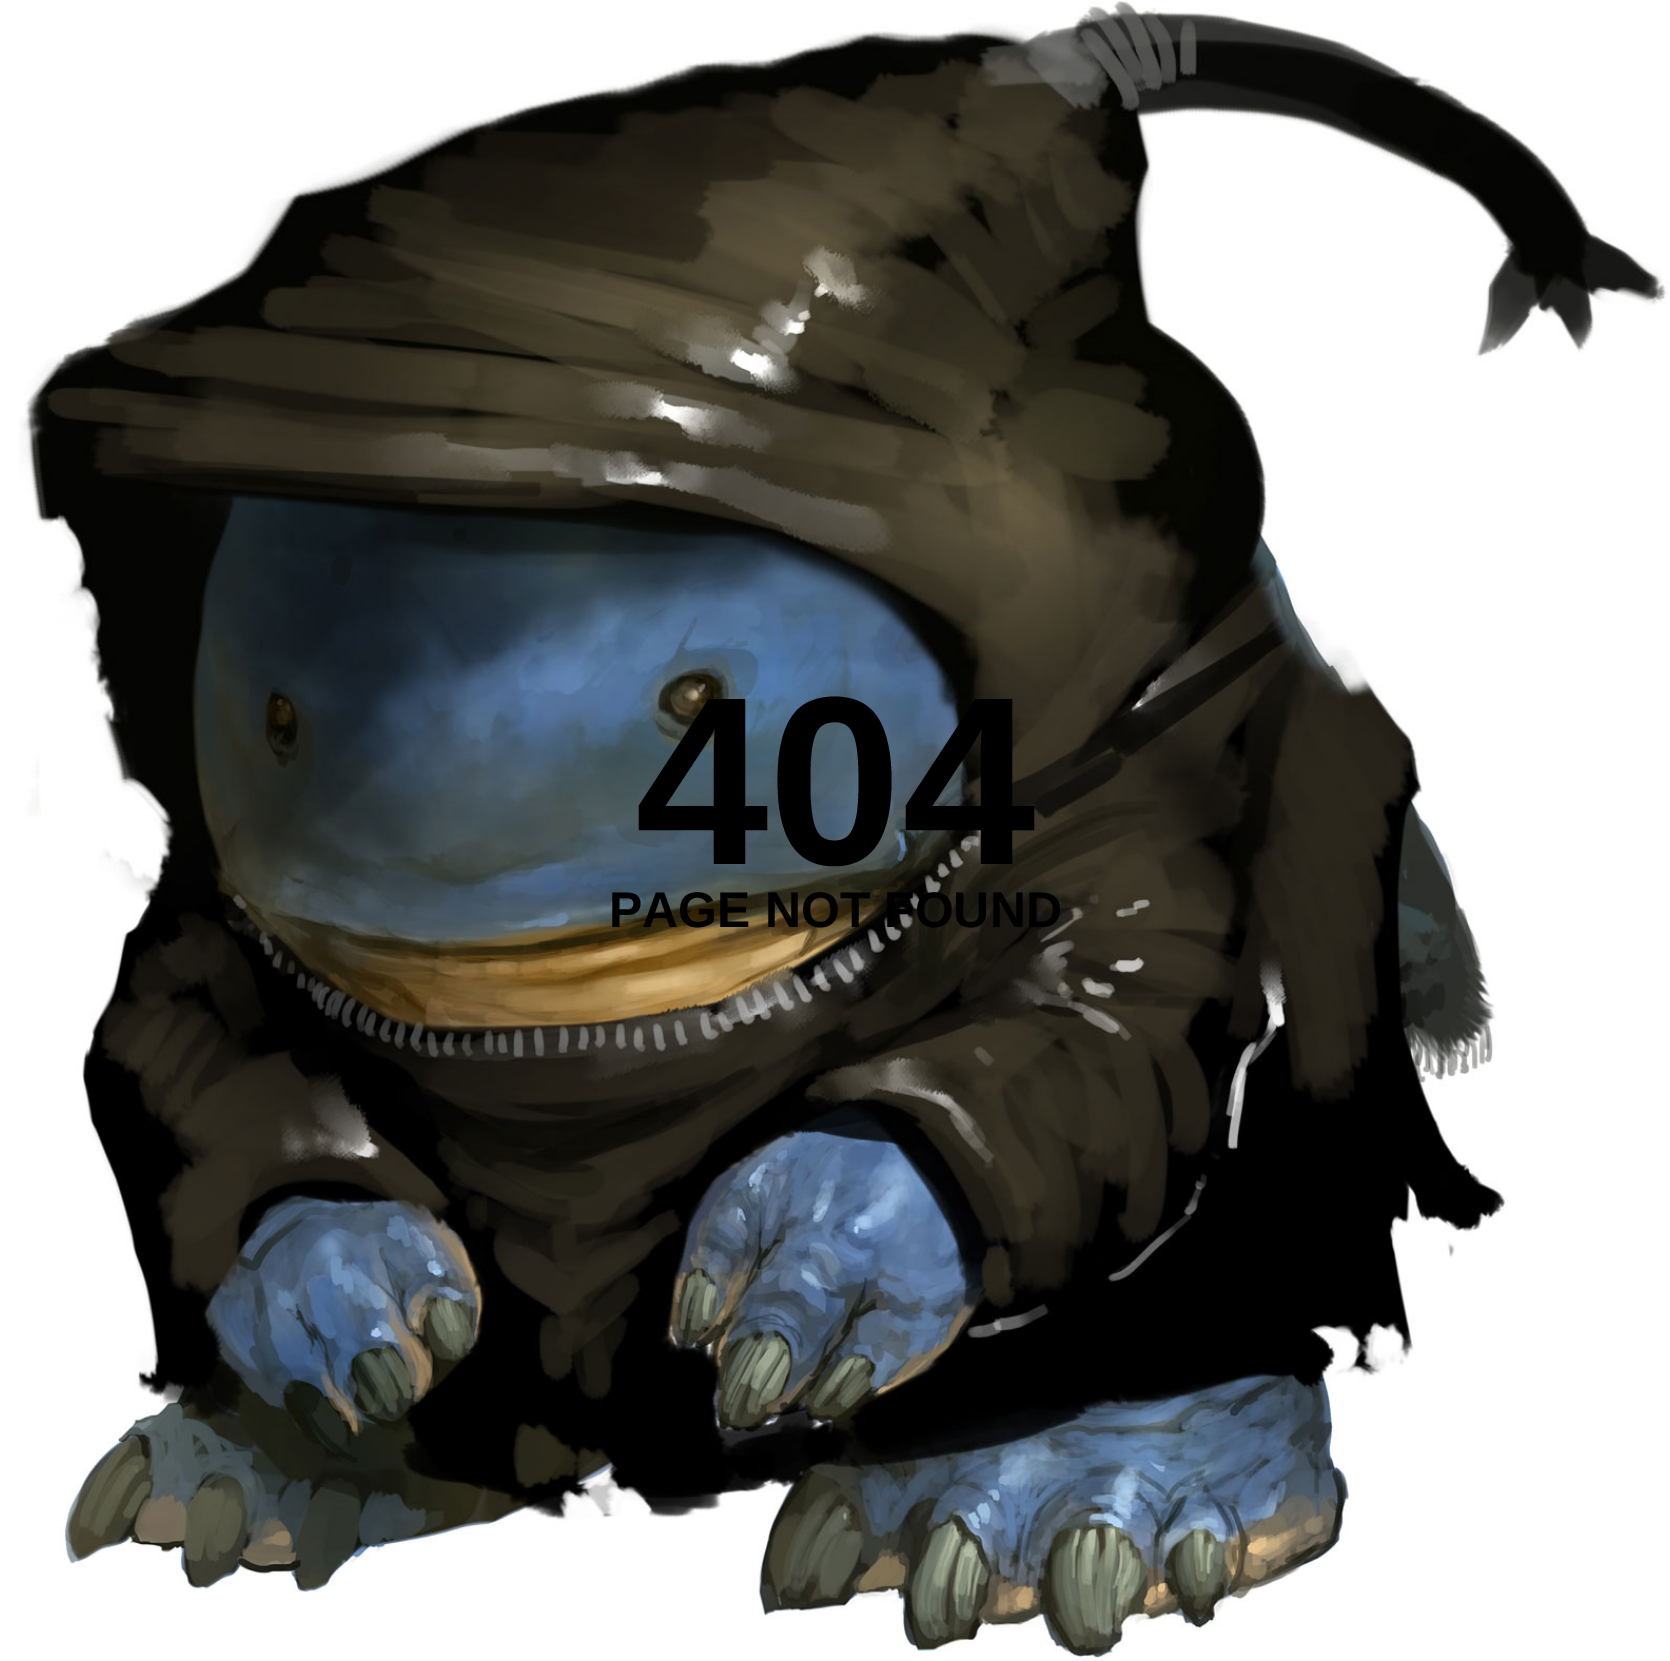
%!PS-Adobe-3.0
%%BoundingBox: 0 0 1670 1661
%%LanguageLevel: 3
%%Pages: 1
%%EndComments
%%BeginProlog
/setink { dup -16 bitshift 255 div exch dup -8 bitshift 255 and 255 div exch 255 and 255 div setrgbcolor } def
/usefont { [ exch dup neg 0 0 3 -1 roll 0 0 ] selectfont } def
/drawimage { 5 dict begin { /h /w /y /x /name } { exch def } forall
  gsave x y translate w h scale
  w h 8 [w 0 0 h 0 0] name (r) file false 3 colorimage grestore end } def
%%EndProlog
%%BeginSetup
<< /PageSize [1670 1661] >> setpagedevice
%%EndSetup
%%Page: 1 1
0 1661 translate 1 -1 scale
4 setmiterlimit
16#FFFFFF setink
0 0 1670 1661 rectfill
(img1.raw) 19 1 1649 1660 drawimage
/LiberationSans-Bold 240 usefont
16#000000 setink
635 864 moveto (404) show
/LiberationSans-Bold 50 usefont
609 927 moveto (PAGE NOT FOUND) show
showpage
%%EOF
